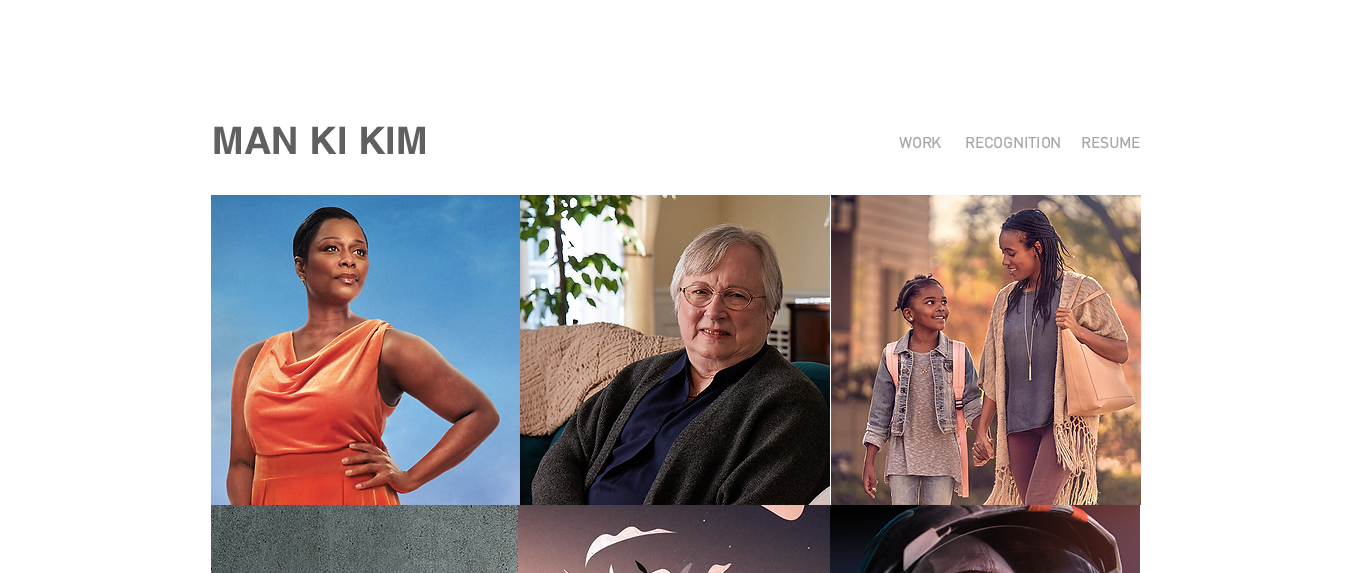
%!PS-Adobe-3.0
%%BoundingBox: 0 0 1346 573
%%LanguageLevel: 3
%%Pages: 1
%%EndComments
%%BeginProlog
/setink { dup -16 bitshift 255 div exch dup -8 bitshift 255 and 255 div exch 255 and 255 div setrgbcolor } def
/usefont { [ exch dup neg 0 0 3 -1 roll 0 0 ] selectfont } def
/drawimage { 5 dict begin { /h /w /y /x /name } { exch def } forall
  gsave x y translate w h scale
  w h 8 [w 0 0 h 0 0] name (r) file false 3 colorimage grestore end } def
%%EndProlog
%%BeginSetup
<< /PageSize [1346 573] >> setpagedevice
%%EndSetup
%%Page: 1 1
0 573 translate 1 -1 scale
4 setmiterlimit
16#FFFFFF setink
0 0 1346 573 rectfill
/helvetica-Bold 38 usefont
16#606060 setink
212 154 moveto (MAN KI KIM) show
/DIN-Bold 15 usefont
16#A8A8A8 setink
[
    [(WORK) 899 148]
    [(RECOGNITION) 965 148]
    [(RESUME) 1081 148]
] { aload pop moveto show } forall
(img1.raw) 211 195 309 310 drawimage
(img2.raw) 520 195 310 310 drawimage
(img3.raw) 831 195 310 310 drawimage
(img4.raw) 211 505 307 68 drawimage
(img5.raw) 518 505 312 68 drawimage
(img6.raw) 830 505 310 68 drawimage
showpage
%%EOF
